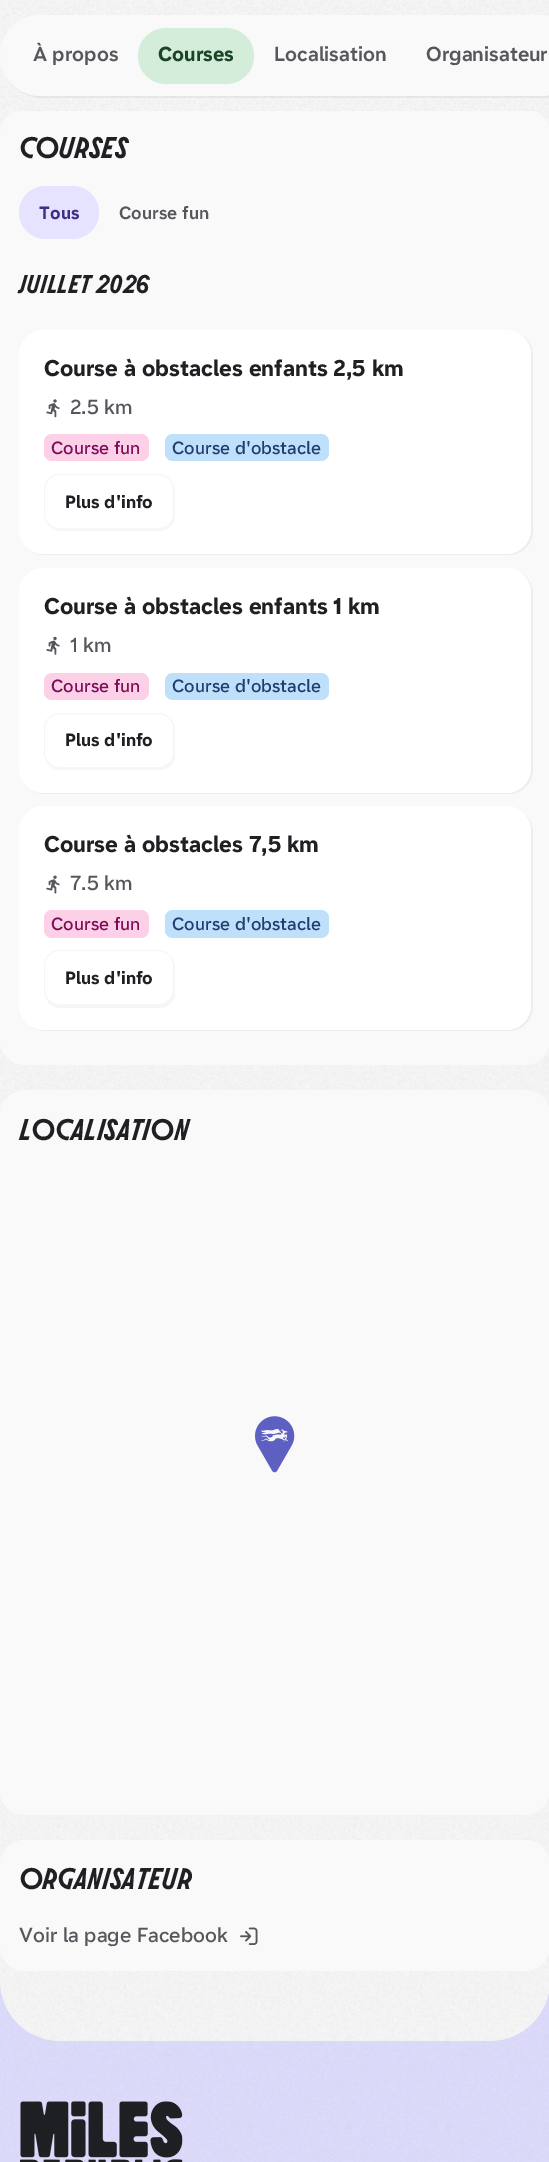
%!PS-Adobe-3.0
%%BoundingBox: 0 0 549 2162
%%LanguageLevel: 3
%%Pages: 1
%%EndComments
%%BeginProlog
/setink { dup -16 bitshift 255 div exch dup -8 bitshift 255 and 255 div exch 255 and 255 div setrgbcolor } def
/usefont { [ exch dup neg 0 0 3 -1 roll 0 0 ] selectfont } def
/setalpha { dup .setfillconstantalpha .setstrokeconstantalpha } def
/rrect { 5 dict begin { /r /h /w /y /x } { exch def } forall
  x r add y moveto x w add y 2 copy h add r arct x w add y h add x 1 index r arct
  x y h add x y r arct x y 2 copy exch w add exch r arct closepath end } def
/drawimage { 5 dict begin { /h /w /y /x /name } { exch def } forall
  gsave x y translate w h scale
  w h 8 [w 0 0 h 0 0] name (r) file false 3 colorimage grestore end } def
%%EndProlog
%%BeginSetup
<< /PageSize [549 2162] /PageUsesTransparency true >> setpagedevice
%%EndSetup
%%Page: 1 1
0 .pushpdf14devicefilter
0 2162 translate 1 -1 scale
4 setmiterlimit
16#F6F6F6 setink
0 0 549 2162 rectfill
16#DEDCFC setink
0 1981 549 181 rectfill
16#F6F6F6 setink
0 1981 moveto 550 1981 lineto 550 2014 523 2041 490 2041 curveto 60 2041 lineto 27 2041 0 2014 0 1981 curveto closepath fill
(img8.raw) 20 2101 163 61 drawimage
(img7.raw) 0 111 549 2051 drawimage
16#F9F9F9 setink
0 109 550 956 25 rrect fill
16#F6F6F6 setink
18 109 514 2 rectfill
(img1.raw) 0 0 549 111 drawimage
0.05 setalpha
16#000000 setink
7 79 moveto 15 90 27 98 42 98 curveto 542 98 lineto 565 98 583 80 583 57 curveto 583 42 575 30 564 22 curveto 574 30 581 42 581 56 curveto 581 78 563 96 541 96 curveto 41 96 lineto 27 96 15 89 7 79 curveto closepath fill
1 setalpha
16#F9F9F9 setink
0 15 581 81 40.5 rrect fill
/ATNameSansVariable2-SemiBold 20 usefont
16#56565C setink
33 61 moveto (À propos) show
16#D3EDDA setink
138 28 116 56 28 rrect fill
/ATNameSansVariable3-Bold 20 usefont
16#1A4525 setink
158 61 moveto (Courses) show
/ATNameSansVariable2-SemiBold 20 usefont
16#56565C setink
274 61 moveto (Localisation) show
426 61 moveto (Organisateur) show
/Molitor-BoldItalic 27.5 usefont
16#1F2024 setink
19 158 moveto (COURSES) show
16#E5E3FF setink
19 186 80 53 26.5 rrect fill
/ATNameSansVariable-Bold 17.5 usefont
16#3F2E85 setink
39 219 moveto (Tous) show
/ATNameSansVariable-SemiBold 17.5 usefont
16#56565C setink
119 219 moveto (Course fun) show
/Molitor-BoldItalic 23.75 usefont
16#1F2024 setink
19 293 moveto (JUILLET 2026) show
16#EDEDED setink
27 547 moveto 31 552 38 555 45 555 curveto 508 555 lineto 522 555 533 544 533 530 curveto 533 356 lineto 533 346 528 338 520 334 curveto 527 338 531 346 531 355 curveto 531 529 lineto 531 543 520 554 506 554 curveto 44 554 lineto 37 554 31 551 27 547 curveto closepath fill
16#FFFFFF setink
19 330 512 224 25 rrect fill
/ATNameSansVariable2-Bold 22.5 usefont
16#1F2024 setink
44 376 moveto (Course à obstacles enfants 2,5 km) show
(img2.raw) 46 399 14 19 drawimage
/ATNameSansVariable-Medium 20 usefont
16#56565C setink
70 414 moveto (2.5 km) show
16#FCD1E8 setink
44 434 105 27 8 rrect fill
/ATNameSansVariable2-Medium 17.5 usefont
16#7D0D5B setink
51 454 moveto (Course fun) show
16#BEE0FA setink
165 434 164 27 8 rrect fill
16#213C72 setink
172 454 moveto (Course d'obstacle) show
16#F6F6F6 setink
46 522 moveto 49 527 54 531 60 531 curveto 160 531 lineto 168 531 175 524 175 516 curveto 175 491 lineto 175 488 174 485 172 483 curveto 173 484 174 487 174 489 curveto 174 514 lineto 174 522 167 529 159 529 curveto 59 529 lineto 54 529 49 526 46 522 curveto closepath fill
16#FFFFFF setink
44.5 474.5 129 54 14.5 rrect gsave fill grestore
16#F6F6F6 setink
stroke
/ATNameSansVariable-Bold 17.5 usefont
16#1F2024 setink
65 508 moveto (Plus d'info) show
16#EDEDED setink
25 784 moveto 30 790 37 794 45 794 curveto 508 794 lineto 522 794 533 783 533 769 curveto 533 594 lineto 533 586 529 579 523 574 curveto 528 579 531 585 531 592 curveto 531 768 lineto 531 781 520 792 506 792 curveto 44 792 lineto 36 792 30 789 25 784 curveto closepath fill
16#FFFFFF setink
19 568 512 225 25 rrect fill
/ATNameSansVariable2-Bold 22.5 usefont
16#1F2024 setink
44 614 moveto (Course à obstacles enfants 1 km) show
(img3.raw) 46 636 14 19 drawimage
/ATNameSansVariable-Medium 20 usefont
16#56565C setink
70 652 moveto (1 km) show
16#FCD1E8 setink
44 673 105 27 8 rrect fill
/ATNameSansVariable2-Medium 17.5 usefont
16#7D0D5B setink
51 692 moveto (Course fun) show
16#BEE0FA setink
165 673 164 27 8 rrect fill
16#213C72 setink
172 692 moveto (Course d'obstacle) show
16#F6F6F6 setink
46 760 moveto 48 766 54 770 60 770 curveto 160 770 lineto 168 770 175 763 175 755 curveto 175 730 lineto 175 727 174 724 173 722 curveto 174 728 lineto 174 752 lineto 174 761 167 768 159 768 curveto 59 768 lineto 53 768 49 765 46 760 curveto closepath fill
16#FFFFFF setink
44.5 713.5 129 54 14.5 rrect gsave fill grestore
16#F6F6F6 setink
stroke
/ATNameSansVariable-Bold 17.5 usefont
16#1F2024 setink
65 746 moveto (Plus d'info) show
16#EDEDED setink
29 1025 moveto 33 1029 39 1031 45 1031 curveto 508 1031 lineto 522 1031 533 1020 533 1006 curveto 533 833 lineto 533 826 530 819 525 814 curveto 529 819 531 825 531 831 curveto 531 1005 lineto 531 1019 520 1030 506 1030 curveto 44 1030 lineto 38 1030 33 1028 29 1025 curveto closepath fill
16#FFFFFF setink
19 806 512 224 25 rrect fill
/ATNameSansVariable2-Bold 22.5 usefont
16#1F2024 setink
44 852 moveto (Course à obstacles 7,5 km) show
(img4.raw) 46 875 14 19 drawimage
/ATNameSansVariable-Medium 20 usefont
16#56565C setink
70 890 moveto (7.5 km) show
16#FCD1E8 setink
44 910 105 28 8 rrect fill
/ATNameSansVariable2-Medium 17.5 usefont
16#7D0D5B setink
51 930 moveto (Course fun) show
16#BEE0FA setink
165 910 164 28 8 rrect fill
16#213C72 setink
172 930 moveto (Course d'obstacle) show
16#F6F6F6 setink
46 997 moveto 47 1003 53 1008 60 1008 curveto 160 1008 lineto 168 1008 175 1001 175 993 curveto 175 968 lineto 175 965 174 963 173 961 curveto 174 965 lineto 174 990 lineto 174 998 167 1005 159 1005 curveto 59 1005 lineto 53 1005 48 1002 46 997 curveto closepath fill
16#FFFFFF setink
44.5 950.5 129 54 14.5 rrect gsave fill grestore
16#F6F6F6 setink
stroke
/ATNameSansVariable-Bold 17.5 usefont
16#1F2024 setink
65 984 moveto (Plus d'info) show
16#F9F9F9 setink
0 1090 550 725 25 rrect fill
/Molitor-BoldItalic 27.5 usefont
16#1F2024 setink
19 1140 moveto (LOCALISATION) show
(img5.raw) 255 1416 40 57 drawimage
16#F9F9F9 setink
0 1840 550 131 25 rrect fill
16#1F2024 setink
19 1889 moveto (ORGANISATEUR) show
/ATNameSansVariable-Medium 20 usefont
16#56565C setink
19 1942 moveto (Voir la page Facebook) show
(img6.raw) 240 1927 18 18 drawimage
.poppdf14devicefilter showpage
%%EOF
